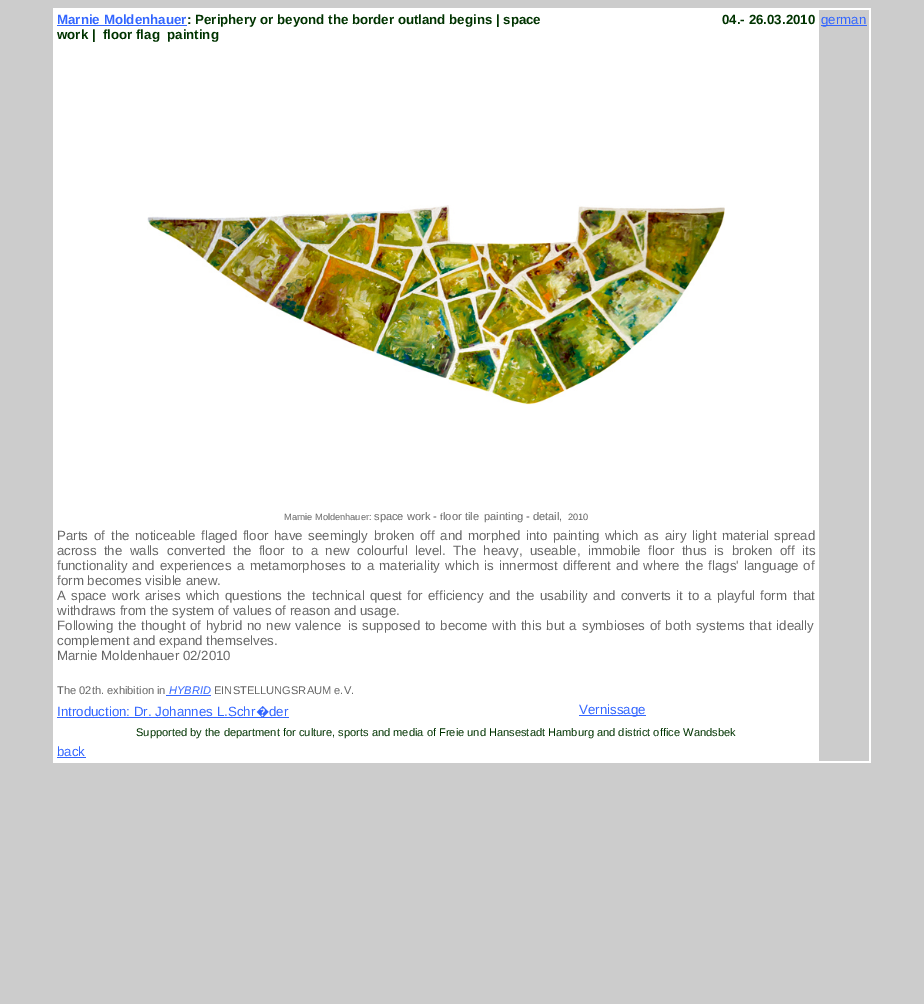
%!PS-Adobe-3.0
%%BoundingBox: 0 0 924 1004
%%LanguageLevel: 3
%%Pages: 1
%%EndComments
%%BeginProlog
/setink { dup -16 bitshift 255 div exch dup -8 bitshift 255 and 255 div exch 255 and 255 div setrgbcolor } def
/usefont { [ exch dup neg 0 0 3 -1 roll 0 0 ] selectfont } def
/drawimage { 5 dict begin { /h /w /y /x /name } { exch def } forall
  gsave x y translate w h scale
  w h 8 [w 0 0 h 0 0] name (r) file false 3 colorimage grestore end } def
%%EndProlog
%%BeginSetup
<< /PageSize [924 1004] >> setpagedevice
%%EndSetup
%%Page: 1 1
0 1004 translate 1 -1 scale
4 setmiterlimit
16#CCCCCC setink
0 0 924 1004 rectfill
16#FFFFFF setink
53 8 818 755 rectfill
/LiberationSans-Bold 13.3 usefont
16#3366FF setink
57 24 moveto (Marnie Moldenhauer) show
57 25 130 1 rectfill
16#003300 setink
[
    [(: Periphery or beyond the border outland begins | space) 187 24]
    [(work |  floor flag) 57 39]
    [(painting) 167 39]
    [(04.- 26.03.2010) 722 24]
] { aload pop moveto show } forall
16#CCCCCC setink
819 10 50 751 rectfill
16#3366FF setink
821 25 46 1 rectfill
/LiberationSans-Regular 13.3 usefont
821 24 moveto (german) show
(img1.raw) 147 205 578 200 drawimage
/LiberationSans-Regular 9.25 usefont
16#666666 setink
284 520 moveto (Marnie Moldenhauer:) show
/LiberationSans-Regular 11.1 usefont
374 520 moveto (space work -) show
/LiberationSans-Regular 9.25 usefont
440 520 moveto (f) show
/LiberationSans-Regular 11.1 usefont
[
    [(loor tile) 443 520]
    [(painting) 484 520]
    [(- detail,) 526 520]
] { aload pop moveto show } forall
/LiberationSans-Regular 9.25 usefont
568 520 moveto (2010) show
/LiberationSans-Regular 13.3 usefont
57 540 moveto 2 0 32 (Parts of) widthshow
111 540 moveto 1.75 0 32 (the noticeable flaged floor have seemingly) widthshow
374 540 moveto 1.75 0 32 (broken off and morphed into painting which as) widthshow
665 540 moveto 1.75 0 32 (airy light material spread) widthshow
57 555 moveto 3.75 0 32 (across the walls) widthshow
167 555 moveto 3.75 0 32 (converted the floor to a new colourful level.) widthshow
453 555 moveto 3.75 0 32 (The heavy, useable, immobile floor thus is) widthshow
732 555 moveto 3.75 0 32 (broken off its) widthshow
57 570 moveto 1.5 0 32 (functionality and experiences a) widthshow
250 570 moveto 1.5 0 32 (metamorphoses to a materiality which is) widthshow
499 570 moveto 1.5 0 32 (innermost different and where the flags') widthshow
744 570 moveto 1 0 32 (language of) widthshow
57 585 moveto (form becomes visible anew.) show
57 600 moveto 1.5 0 32 (A space work arises which questions the) widthshow
312 600 moveto 1.5 0 32 (technical quest for efficiency and the) widthshow
540 600 moveto 1.5 0 32 (usability and converts it to a playful form) widthshow
793 600 moveto (that) show
57 615 moveto (withdraws from the system of values of reason and usage.) show
57 630 moveto 1 0 32 (Following the thought of hybrid no new valence) widthshow
348 630 moveto 1 0 32 (is supposed to become with this but a) widthshow
582 630 moveto 1 0 32 (symbioses of both systems that ideally) widthshow
57 645 moveto (complement and expand themselves.) show
57 660 moveto (Marnie Moldenhauer 02/2010) show
/LiberationSans-Regular 11.1 usefont
57 694 moveto (The 02th. exhibition in) show
/LiberationSans-Italic 11.1 usefont
16#3366FF setink
169 694 moveto (HYBRID) show
166 695 45 1 rectfill
/LiberationSans-Regular 11.1 usefont
16#666666 setink
214 694 moveto (EINSTELLUNGSRAUM e.V.) show
/LiberationSans-Regular 13.3 usefont
16#3366FF setink
57 716 moveto (Introduction: Dr. Johannes L.Schr) show
57 717 232 1 rectfill
/NotoSans-Regular 13.3 usefont
256 716 moveto (�) show
/LiberationSans-Regular 13.3 usefont
269 716 moveto (der) show
579 715 67 1 rectfill
579 714 moveto (Vernissage) show
/LiberationSans-Regular 11.1 usefont
16#003300 setink
136 736 moveto (Supported by the department for culture, sports and media of Freie und Hansestadt Hamburg and district office Wandsbek) show
/LiberationSans-Regular 13.3 usefont
16#3366FF setink
57 756 moveto (back) show
57 757 29 1 rectfill
showpage
%%EOF
